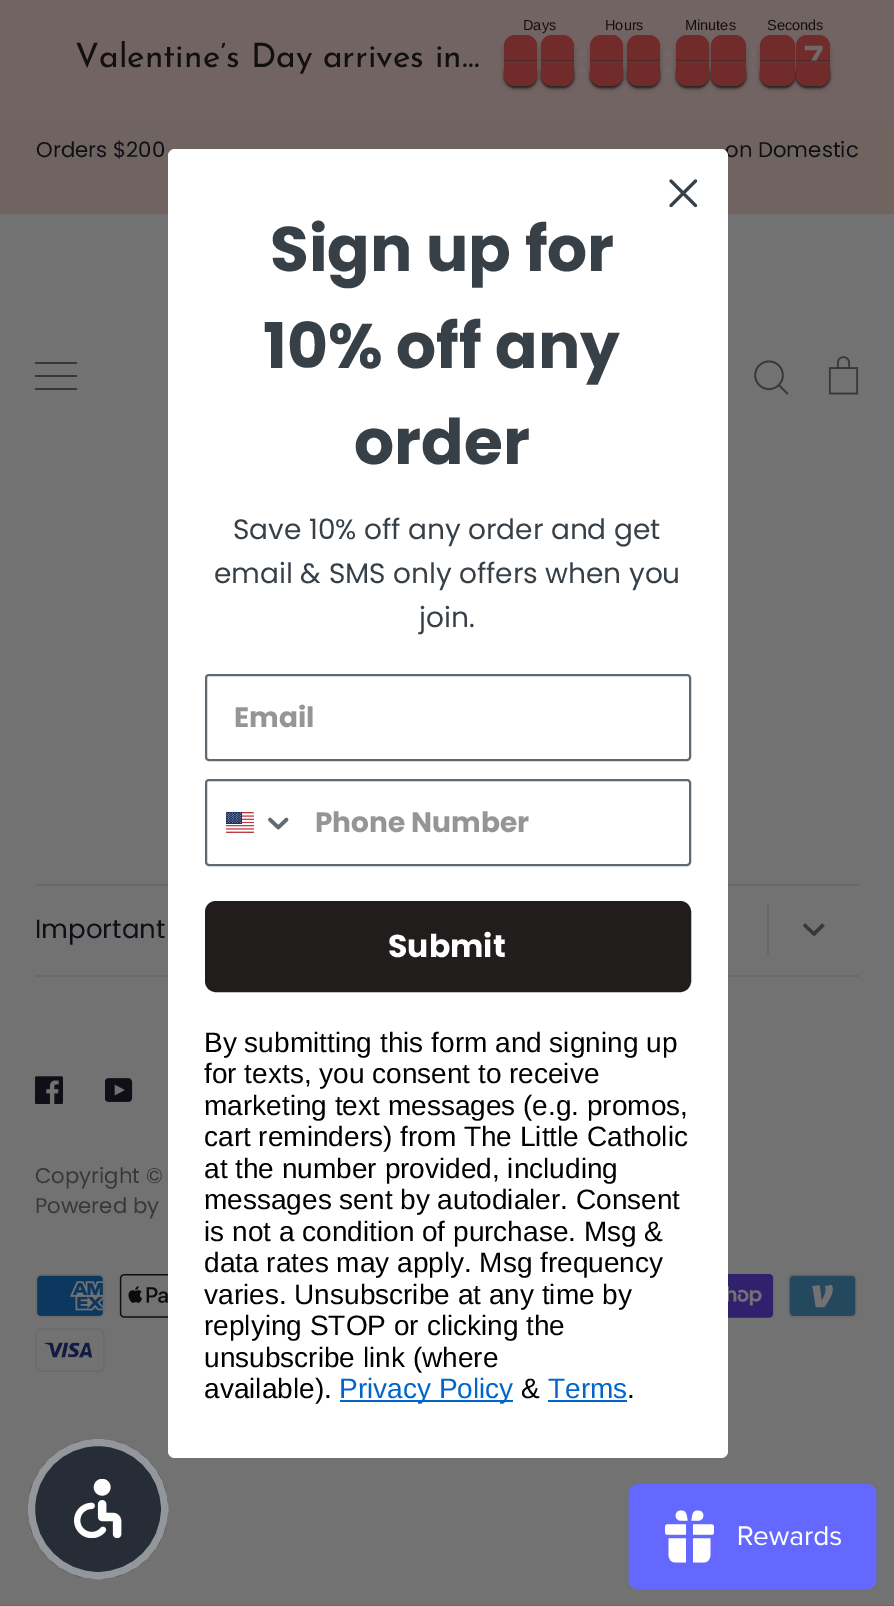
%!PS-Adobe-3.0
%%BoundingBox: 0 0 894 1606
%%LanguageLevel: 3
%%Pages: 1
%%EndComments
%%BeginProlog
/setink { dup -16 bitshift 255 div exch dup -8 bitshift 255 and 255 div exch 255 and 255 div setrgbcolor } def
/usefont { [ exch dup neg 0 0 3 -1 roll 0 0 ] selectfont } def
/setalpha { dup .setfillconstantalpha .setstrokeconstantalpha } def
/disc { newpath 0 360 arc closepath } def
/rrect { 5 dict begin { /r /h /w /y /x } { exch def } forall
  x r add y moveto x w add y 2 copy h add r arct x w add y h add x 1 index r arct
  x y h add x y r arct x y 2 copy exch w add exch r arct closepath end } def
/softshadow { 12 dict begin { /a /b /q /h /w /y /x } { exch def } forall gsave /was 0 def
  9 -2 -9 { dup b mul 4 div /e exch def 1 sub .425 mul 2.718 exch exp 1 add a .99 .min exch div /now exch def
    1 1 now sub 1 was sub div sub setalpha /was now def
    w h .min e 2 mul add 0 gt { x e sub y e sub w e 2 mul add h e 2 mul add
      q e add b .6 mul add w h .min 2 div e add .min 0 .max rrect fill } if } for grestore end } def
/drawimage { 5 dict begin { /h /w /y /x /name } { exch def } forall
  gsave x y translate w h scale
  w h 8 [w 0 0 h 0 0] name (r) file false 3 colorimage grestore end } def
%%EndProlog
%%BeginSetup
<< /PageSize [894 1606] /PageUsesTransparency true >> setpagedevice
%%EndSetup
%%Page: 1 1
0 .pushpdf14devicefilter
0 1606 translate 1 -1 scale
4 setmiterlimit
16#727272 setink
0 0 894 1606 rectfill
16#726462 setink
0 0 894 119 rectfill
/JosefinSans-Thin 33.6 usefont
16#101010 setink
75 67 moveto (Valentine’s Day arrives in…) show
16#0C0C0C setink
504 39 33 50 11 2.5 0.24 softshadow
541 39 33 50 11 2.5 0.24 softshadow
/LiberationSans-Regular 14.5 usefont
16#101010 setink
523 30 moveto (Days) show
16#0C0C0C setink
504 63 33 25 11 1 0.4 softshadow
16#702B2A setink
515 35 moveto 526 35 lineto 532 35 537 40 537 46 curveto 537 61 lineto 504 61 lineto 504 46 lineto 504 40 509 35 515 35 curveto closepath fill
0.4 setalpha
16#202020 setink
504 60 33 1 rectfill
1 setalpha
16#0C0C0C setink
504 63 33 25 11 1 0.4 softshadow
16#702B2A setink
504 61 moveto 537 61 lineto 537 75 lineto 537 81 532 86 526 86 curveto 515 86 lineto 509 86 504 81 504 75 curveto closepath fill
0.1 setalpha
16#5E5E5E setink
504 61 33 2 rectfill
1 setalpha
16#0C0C0C setink
541 63 33 25 11 1 0.4 softshadow
16#702B2A setink
552 35 moveto 563 35 lineto 569 35 574 40 574 46 curveto 574 61 lineto 541 61 lineto 541 46 lineto 541 40 546 35 552 35 curveto closepath fill
0.4 setalpha
16#202020 setink
541 60 33 1 rectfill
1 setalpha
16#0C0C0C setink
541 63 33 25 11 1 0.4 softshadow
16#702B2A setink
541 61 moveto 574 61 lineto 574 75 lineto 574 81 569 86 563 86 curveto 552 86 lineto 546 86 541 81 541 75 curveto closepath fill
0.1 setalpha
16#5E5E5E setink
541 61 33 2 rectfill
1 setalpha
16#70696A setink
579 51 7 5 2.5 rrect fill
579 67 7 5 2.5 rrect fill
16#0C0C0C setink
590 39 33 50 11 2.5 0.24 softshadow
627 39 33 50 11 2.5 0.24 softshadow
16#101010 setink
605 30 moveto (Hours) show
16#0C0C0C setink
590 63 33 25 11 1 0.4 softshadow
16#702B2A setink
601 35 moveto 612 35 lineto 618 35 623 40 623 46 curveto 623 61 lineto 590 61 lineto 590 46 lineto 590 40 595 35 601 35 curveto closepath fill
0.4 setalpha
16#202020 setink
590 60 33 1 rectfill
1 setalpha
16#0C0C0C setink
590 63 33 25 11 1 0.4 softshadow
16#702B2A setink
590 61 moveto 623 61 lineto 623 75 lineto 623 81 618 86 612 86 curveto 601 86 lineto 595 86 590 81 590 75 curveto closepath fill
0.1 setalpha
16#5E5E5E setink
590 61 33 2 rectfill
1 setalpha
16#0C0C0C setink
627 63 33 25 11 1 0.4 softshadow
16#702B2A setink
638 35 moveto 649 35 lineto 655 35 660 40 660 46 curveto 660 61 lineto 627 61 lineto 627 46 lineto 627 40 632 35 638 35 curveto closepath fill
0.4 setalpha
16#202020 setink
627 60 33 1 rectfill
1 setalpha
16#0C0C0C setink
627 63 33 25 11 1 0.4 softshadow
16#702B2A setink
627 61 moveto 660 61 lineto 660 75 lineto 660 81 655 86 649 86 curveto 638 86 lineto 632 86 627 81 627 75 curveto closepath fill
0.1 setalpha
16#5E5E5E setink
627 61 33 2 rectfill
1 setalpha
16#70696A setink
665 51 7 5 2.5 rrect fill
665 67 7 5 2.5 rrect fill
16#0C0C0C setink
676 39 33 50 11 2.5 0.24 softshadow
711 39 35 50 11 2.5 0.24 softshadow
16#101010 setink
685 30 moveto (Minutes) show
16#0C0C0C setink
676 63 33 25 11 1 0.4 softshadow
711 63 35 25 11 1 0.4 softshadow
16#702B2A setink
687 35 moveto 698 35 lineto 704 35 709 40 709 46 curveto 709 61 lineto 676 61 lineto 676 46 lineto 676 40 681 35 687 35 curveto closepath fill
0.4 setalpha
16#202020 setink
676 60 33 1 rectfill
1 setalpha
16#0C0C0C setink
676 63 33 25 11 1 0.4 softshadow
16#702B2A setink
676 61 moveto 709 61 lineto 709 75 lineto 709 81 704 86 698 86 curveto 687 86 lineto 681 86 676 81 676 75 curveto closepath fill
0.1 setalpha
16#5E5E5E setink
676 61 33 2 rectfill
1 setalpha
16#702B2A setink
722 35 moveto 735 35 lineto 741 35 746 40 746 46 curveto 746 61 lineto 711 61 lineto 711 46 lineto 711 40 716 35 722 35 curveto closepath fill
0.4 setalpha
16#202020 setink
711 60 35 1 rectfill
1 setalpha
16#0C0C0C setink
711 63 35 25 11 1 0.4 softshadow
16#702B2A setink
711 61 moveto 746 61 lineto 746 75 lineto 746 81 741 86 735 86 curveto 722 86 lineto 716 86 711 81 711 75 curveto closepath fill
0.1 setalpha
16#5E5E5E setink
711 61 35 2 rectfill
1 setalpha
16#70696A setink
753.5 53.5 2.5 disc fill
753.5 69.5 2.5 disc fill
16#0C0C0C setink
760 39 35 50 11 2.5 0.24 softshadow
796 39 34 50 11 2.5 0.24 softshadow
16#101010 setink
767 30 moveto (Seconds) show
16#0C0C0C setink
760 63 35 25 11 1 0.4 softshadow
796 63 34 25 11 1 0.4 softshadow
16#702B2A setink
771 35 moveto 784 35 lineto 790 35 795 40 795 46 curveto 795 61 lineto 760 61 lineto 760 46 lineto 760 40 765 35 771 35 curveto closepath fill
0.4 setalpha
16#202020 setink
760 60 35 1 rectfill
1 setalpha
16#0C0C0C setink
760 63 35 25 11 1 0.4 softshadow
16#702B2A setink
760 61 moveto 795 61 lineto 795 75 lineto 795 81 790 86 784 86 curveto 771 86 lineto 765 86 760 81 760 75 curveto closepath fill
0.1 setalpha
16#5E5E5E setink
760 61 35 2 rectfill
1 setalpha
16#702B2A setink
807 35 moveto 819 35 lineto 825 35 830 40 830 46 curveto 830 61 lineto 796 61 lineto 796 46 lineto 796 40 801 35 807 35 curveto closepath fill
/LiberationSans-Bold 38 usefont
16#70696A setink
803 72 moveto (7) show
0.4 setalpha
16#202020 setink
796 60 34 1 rectfill
1 setalpha
16#0C0C0C setink
796 63 34 25 11 1 0.4 softshadow
16#702B2A setink
796 61 moveto 830 61 lineto 830 75 lineto 830 81 825 86 819 86 curveto 807 86 lineto 801 86 796 81 796 75 curveto closepath fill
0.1 setalpha
16#5E5E5E setink
796 61 34 2 rectfill
1 setalpha
16#6F6460 setink
0 119 894 95 rectfill
/Poppins-Regular 21.25 usefont
16#0F1017 setink
36 157 moveto (Orders $200) show
725 157 moveto (on Domestic) show
16#69696A setink
35 884 824 2 rectfill
35 975 824 2 rectfill
16#FFFFFF setink
168 149 560 1309 7 rrect fill
16#373F47 setink
3.1 setlinewidth
1 setlinecap
1 setlinejoin
671 181 moveto 695.5 205.5 lineto 671 205.5 moveto 695.5 181 lineto closepath stroke
/Poppins-Bold 63 usefont
[
    [(Sign up for) 270 271]
    [(10% off any) 263 368]
    [(order) 354 464]
] { aload pop moveto show } forall
/Poppins-Regular 28 usefont
[
    [(Save 10% off any order and get) 233 539]
    [(email & SMS only offers when you) 214 583]
    [(join.) 419 627]
] { aload pop moveto show } forall
16#606A72 setink
2 setlinewidth
0 setlinecap
0 setlinejoin
206 675 484 85 3 rrect stroke
/Poppins-Bold 28 usefont
16#949596 setink
234 727 moveto (Email) show
16#606A72 setink
206 780 484 85 3 rrect stroke
(img1.raw) 226 812 28 21 drawimage
(img2.raw) 268 817 21 13 drawimage
16#949596 setink
315 832 moveto (Phone Number) show
16#211D1C setink
210.5 906.5 475 80 5.5 rrect gsave fill grestore
11 setlinewidth
stroke
/Poppins-Bold 31.5 usefont
16#FFFFFF setink
388 957 moveto (Submit) show
/LiberationSans-Regular 28 usefont
16#000000 setink
[
    [(By submitting this form and signing up) 204 1052]
    [(for texts, you consent to receive) 204 1083]
    [(marketing text messages \(e.g. promos,) 204 1115]
    [(cart reminders\) from The Little Catholic) 204 1146]
    [(at the number provided, including) 204 1178]
    [(messages sent by autodialer. Consent) 204 1209]
    [(is not a condition of purchase. Msg &) 204 1241]
    [(data rates may apply. Msg frequency) 204 1272]
    [(varies. Unsubscribe at any time by) 204 1304]
    [(replying STOP or clicking the) 204 1335]
    [(unsubscribe link \(where) 204 1367]
    [(available\).) 204 1398]
] { aload pop moveto show } forall
16#0066CC setink
340 1400 173 2 rectfill
339 1398 moveto (Privacy Policy) show
16#000000 setink
521 1398 moveto (&) show
16#0066CC setink
548 1398 moveto (Terms) show
548 1400 79 2 rectfill
16#000000 setink
627 1398 moveto (.) show
[
    [35 362 42 2 16#37373C]
    [35 375 42 2 16#37373C]
    [35 388 42 2 16#37373C]
] { aload pop setink rectfill } forall
(img3.raw) 754 360 35 35 drawimage
(img4.raw) 828 356 31 39 drawimage
16#69696A setink
0 1605 894 1 rectfill
/Poppins-Regular 26 usefont
16#0F1017 setink
35 938 moveto (Important) show
16#69696A setink
767 903 2 53 rectfill
16#37373C setink
3.2 setlinewidth
804 924.5 moveto 814 934 lineto 823.5 924.5 lineto stroke
(img5.raw) 35 1076 28 28 drawimage
(img6.raw) 105 1078 28 24 drawimage
/Poppins-Regular 21.25 usefont
35 1183 moveto (Copyright ©) show
35 1213 moveto (Powered by) show
(img7.raw) 35 1274 70 44 drawimage
(img8.raw) 119 1274 49 44 drawimage
(img9.raw) 728 1274 46 44 drawimage
(img10.raw) 788 1274 69 44 drawimage
(img11.raw) 35 1328 70 44 drawimage
16#272D36 setink
98 1509 70 disc fill
0.5 setalpha
16#FFFFFF setink
7 setlinewidth
98 1509 66.5 disc stroke
1 setalpha
(img12.raw) 74 1479 48 59 drawimage
(img13.raw) 628 1484 249 105 drawimage
.poppdf14devicefilter showpage
%%EOF
